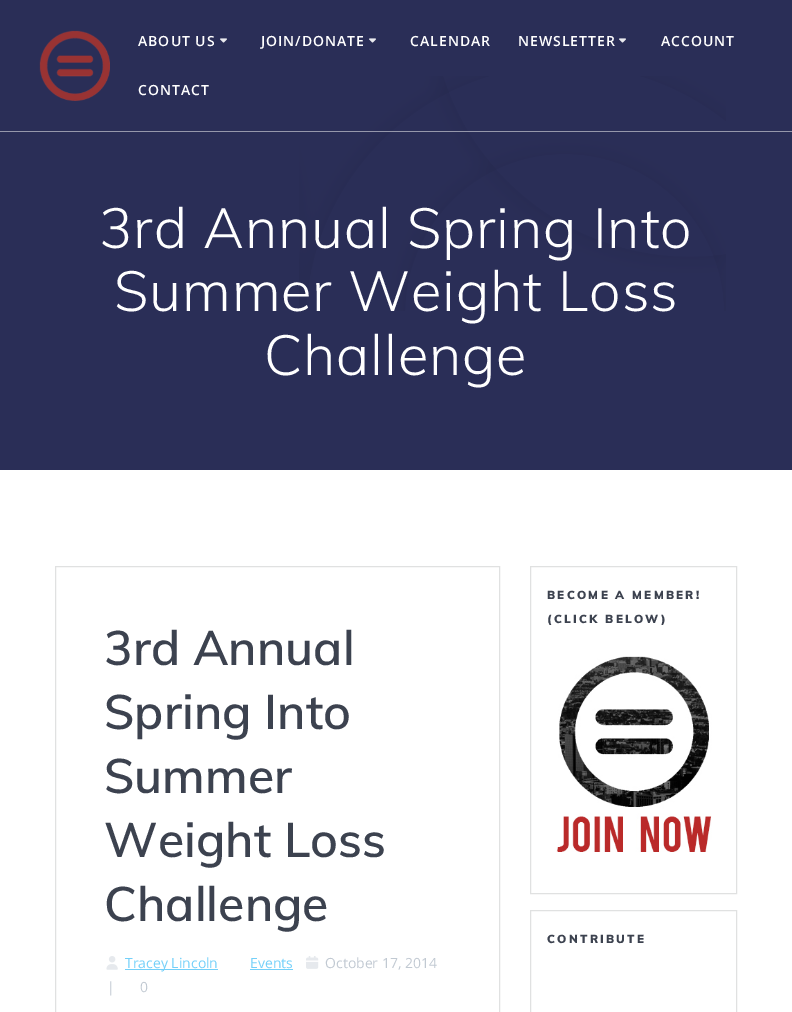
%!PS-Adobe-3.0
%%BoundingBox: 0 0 792 1012
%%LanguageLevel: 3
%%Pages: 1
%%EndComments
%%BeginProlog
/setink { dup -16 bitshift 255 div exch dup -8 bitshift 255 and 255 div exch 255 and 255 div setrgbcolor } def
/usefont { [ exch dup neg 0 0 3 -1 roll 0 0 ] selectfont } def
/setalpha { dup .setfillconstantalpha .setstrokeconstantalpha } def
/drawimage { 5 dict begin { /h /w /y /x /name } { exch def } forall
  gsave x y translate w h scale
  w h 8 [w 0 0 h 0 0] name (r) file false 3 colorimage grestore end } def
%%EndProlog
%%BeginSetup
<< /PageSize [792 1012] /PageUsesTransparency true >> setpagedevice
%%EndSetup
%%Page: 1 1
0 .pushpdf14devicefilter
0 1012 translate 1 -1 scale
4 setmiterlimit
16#FFFFFF setink
0 0 792 1012 rectfill
16#2A2E57 setink
0 0 792 470 rectfill
(img3.raw) 299 76 427 235 drawimage
0.5 setalpha
16#FFFFFF setink
0 131 792 1 rectfill
1 setalpha
(img1.raw) 39 30 71 71 drawimage
/OpenSans-SemiBold 14 usefont
138 46 moveto 1 0 (ABOUT US) ashow
(img2.raw) 220 38 7 5 drawimage
261 46 moveto 1 0 (JOIN/DONATE) ashow
(img2.raw) 369 38 7 5 drawimage
410 46 moveto 1 0 (CALENDAR) ashow
518 46 moveto 1 0 (NEWSLETTER) ashow
(img2.raw) 619 38 7 5 drawimage
661 46 moveto 1 0 (ACCOUNT) ashow
138 95 moveto 1 0 (CONTACT) ashow
/Muli-Light 56 usefont
99 248 moveto 0.9 0 (3rd Annual Spring Into) ashow
114 311 moveto 0.9 0 (Summer Weight Loss) ashow
264 375 moveto 0.9 0 (Challenge) ashow
16#E0E1E1 setink
55.5 566.5 444 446 rectstroke
/Muli-SemiBold 48 usefont
16#3C424F setink
[
    [(3rd Annual) 104 665]
    [(Spring Into) 104 729]
    [(Summer) 104 793]
    [(Weight Loss) 104 857]
    [(Challenge) 104 921]
] { aload pop moveto show } forall
(img4.raw) 106 956 12 14 drawimage
16#74D0F9 setink
125 969 93 1 rectfill
/OpenSans-Regular 14 usefont
125 968 moveto (Tracey Lincoln) show
250 968 moveto (Events) show
250 969 43 1 rectfill
(img5.raw) 306 956 13 13 drawimage
16#C1C9D2 setink
[
    [(October 17, 2014) 325 968]
    [(|) 107 992]
    [(0) 140 992]
] { aload pop moveto show } forall
16#E0E1E1 setink
530.5 566.5 206 327 rectstroke
/Muli-Black 11.6 usefont
16#3C424F setink
547 599 moveto 2.25 0 (BECOME A MEMBER!) ashow
547 623 moveto 2.25 0 (\(CLICK BELOW\)) ashow
(img6.raw) 556 656 156 196 drawimage
16#E0E1E1 setink
530.5 910.5 206 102 rectstroke
16#3C424F setink
547 943 moveto 2.25 0 (CONTRIBUTE) ashow
.poppdf14devicefilter showpage
%%EOF
